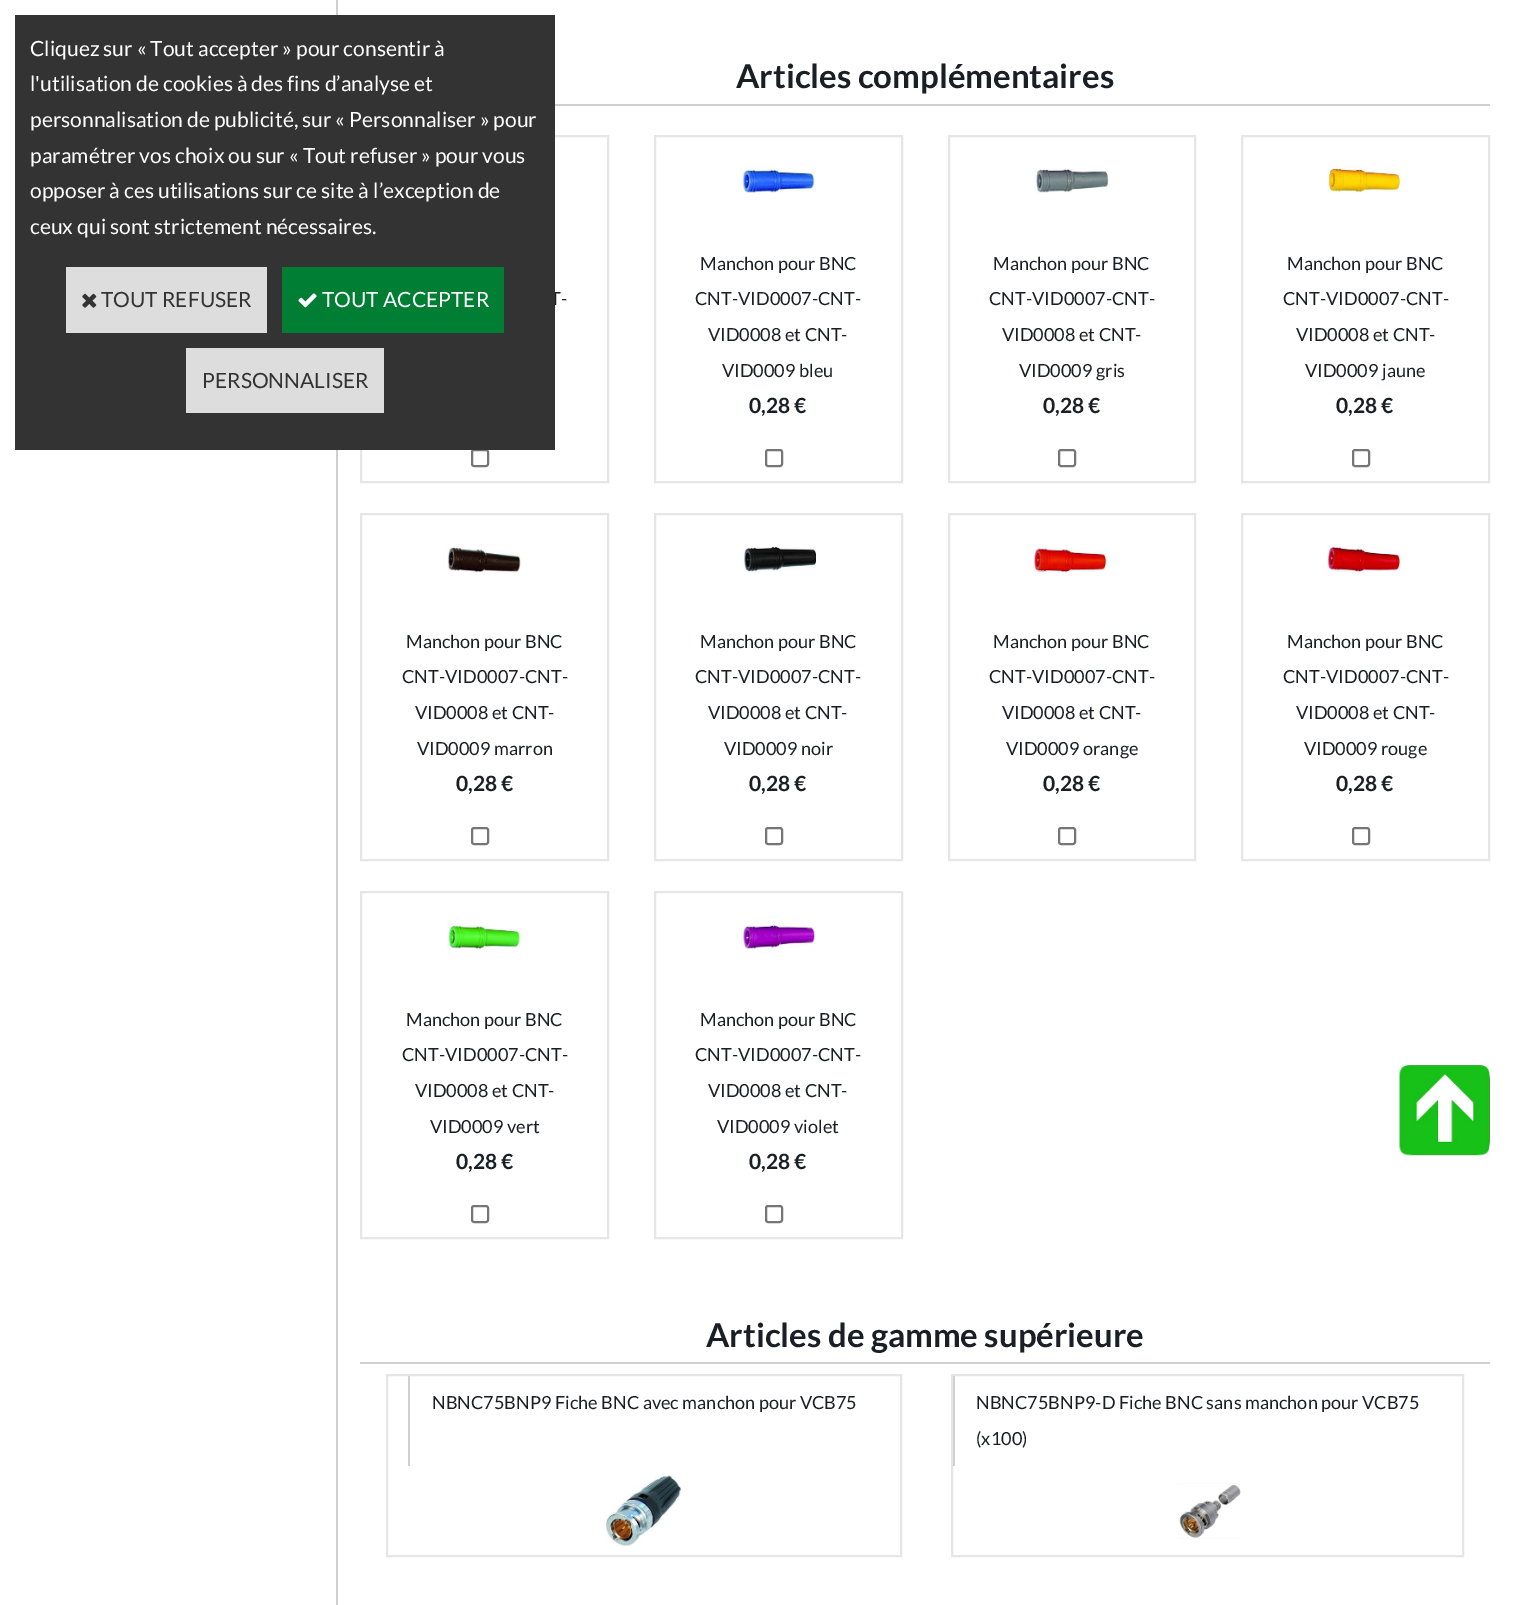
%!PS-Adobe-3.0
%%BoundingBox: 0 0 1534 1605
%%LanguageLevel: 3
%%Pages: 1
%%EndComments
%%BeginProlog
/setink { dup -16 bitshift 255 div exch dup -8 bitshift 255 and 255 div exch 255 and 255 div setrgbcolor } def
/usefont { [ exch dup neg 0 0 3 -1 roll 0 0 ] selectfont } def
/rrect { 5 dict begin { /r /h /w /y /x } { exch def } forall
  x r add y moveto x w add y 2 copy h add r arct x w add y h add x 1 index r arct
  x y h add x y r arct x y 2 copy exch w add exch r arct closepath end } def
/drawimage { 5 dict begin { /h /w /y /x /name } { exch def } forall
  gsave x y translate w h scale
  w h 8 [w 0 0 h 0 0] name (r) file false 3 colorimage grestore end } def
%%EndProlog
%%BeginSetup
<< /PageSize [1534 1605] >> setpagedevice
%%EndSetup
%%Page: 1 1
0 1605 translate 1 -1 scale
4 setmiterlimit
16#FFFFFF setink
0 0 1534 1605 rectfill
16#D0D0D0 setink
336 0 2 1605 rectfill
16#E6E6E6 setink
2 setlinewidth
361 136 247 346 rectstroke
/Lato-Regular 18.1 usefont
16#1A1F26 setink
550 305 moveto (T-) show
16#767676 setink
472 450 16 16 2 rrect stroke
16#333333 setink
15 15 540 435 rectfill
/Lato-Regular 21 usefont
16#FFFFFF setink
[
    [(Cliquez sur « Tout accepter » pour consentir à) 30 56]
    [(l'utilisation de cookies à des fins d’analyse et) 30 91]
    [(personnalisation de publicité, sur « Personnaliser » pour) 30 127]
    [(paramétrer vos choix ou sur « Tout refuser » pour vous) 30 163]
    [(opposer à ces utilisations sur ce site à l’exception de) 30 198]
    [(ceux qui sont strictement nécessaires.) 30 234]
] { aload pop moveto show } forall
16#DDDDDD setink
66 267 201 66 rectfill
(img1.raw) 82 293 15 15 drawimage
16#333333 setink
101 307 moveto (TOUT REFUSER) show
16#007E33 setink
282 267 222 66 rectfill
(img2.raw) 298 293 19 15 drawimage
16#FFFFFF setink
322 307 moveto (TOUT ACCEPTER) show
16#DDDDDD setink
186 348 198 65 rectfill
16#333333 setink
202 388 moveto (PERSONNALISER) show
16#D0D0D0 setink
555 104 935 2 rectfill
/Lato-Bold 33 usefont
16#1A1F26 setink
736 88 moveto (Articles complémentaires) show
16#E6E6E6 setink
655 136 247 346 rectstroke
(img3.raw) 741 166 75 27 drawimage
/Lato-Regular 18.1 usefont
16#1A1F26 setink
[
    [(Manchon pour BNC) 700 270]
    [(CNT-VID0007-CNT-) 695 305]
    [(VID0008 et CNT-) 708 341]
    [(VID0009 bleu) 722 377]
] { aload pop moveto show } forall
/Lato-Bold 21 usefont
749 413 moveto (0,28 €) show
16#767676 setink
766 450 16 16 2 rrect stroke
16#E6E6E6 setink
949 136 246 346 rectstroke
(img4.raw) 1033 168 76 25 drawimage
/Lato-Regular 18.1 usefont
16#1A1F26 setink
[
    [(Manchon pour BNC) 993 270]
    [(CNT-VID0007-CNT-) 989 305]
    [(VID0008 et CNT-) 1002 341]
    [(VID0009 gris) 1019 377]
] { aload pop moveto show } forall
/Lato-Bold 21 usefont
1043 413 moveto (0,28 €) show
16#767676 setink
1059 450 16 16 2 rrect stroke
16#E6E6E6 setink
1242 136 247 346 rectstroke
(img5.raw) 1327 165 76 28 drawimage
/Lato-Regular 18.1 usefont
16#1A1F26 setink
[
    [(Manchon pour BNC) 1287 270]
    [(CNT-VID0007-CNT-) 1283 305]
    [(VID0008 et CNT-) 1296 341]
    [(VID0009 jaune) 1305 377]
] { aload pop moveto show } forall
/Lato-Bold 21 usefont
1336 413 moveto (0,28 €) show
16#767676 setink
1353 450 16 16 2 rrect stroke
16#E6E6E6 setink
361 514 247 346 rectstroke
(img6.raw) 447 546 75 28 drawimage
/Lato-Regular 18.1 usefont
16#1A1F26 setink
[
    [(Manchon pour BNC) 406 648]
    [(CNT-VID0007-CNT-) 402 683]
    [(VID0008 et CNT-) 415 719]
    [(VID0009 marron) 417 755]
] { aload pop moveto show } forall
/Lato-Bold 21 usefont
456 791 moveto (0,28 €) show
16#767676 setink
472 828 16 16 2 rrect stroke
16#E6E6E6 setink
655 514 247 346 rectstroke
(img7.raw) 742 543 74 30 drawimage
/Lato-Regular 18.1 usefont
16#1A1F26 setink
[
    [(Manchon pour BNC) 700 648]
    [(CNT-VID0007-CNT-) 695 683]
    [(VID0008 et CNT-) 708 719]
    [(VID0009 noir) 724 755]
] { aload pop moveto show } forall
/Lato-Bold 21 usefont
749 791 moveto (0,28 €) show
16#767676 setink
766 828 16 16 2 rrect stroke
16#E6E6E6 setink
949 514 246 346 rectstroke
(img8.raw) 1033 544 76 32 drawimage
/Lato-Regular 18.1 usefont
16#1A1F26 setink
[
    [(Manchon pour BNC) 993 648]
    [(CNT-VID0007-CNT-) 989 683]
    [(VID0008 et CNT-) 1002 719]
    [(VID0009 orange) 1006 755]
] { aload pop moveto show } forall
/Lato-Bold 21 usefont
1043 791 moveto (0,28 €) show
16#767676 setink
1059 828 16 16 2 rrect stroke
16#E6E6E6 setink
1242 514 247 346 rectstroke
(img9.raw) 1327 544 76 31 drawimage
/Lato-Regular 18.1 usefont
16#1A1F26 setink
[
    [(Manchon pour BNC) 1287 648]
    [(CNT-VID0007-CNT-) 1283 683]
    [(VID0008 et CNT-) 1296 719]
    [(VID0009 rouge) 1304 755]
] { aload pop moveto show } forall
/Lato-Bold 21 usefont
1336 791 moveto (0,28 €) show
16#767676 setink
1353 828 16 16 2 rrect stroke
16#E6E6E6 setink
361 892 247 346 rectstroke
(img10.raw) 447 921 75 28 drawimage
/Lato-Regular 18.1 usefont
16#1A1F26 setink
[
    [(Manchon pour BNC) 406 1026]
    [(CNT-VID0007-CNT-) 402 1061]
    [(VID0008 et CNT-) 415 1097]
    [(VID0009 vert) 430 1133]
] { aload pop moveto show } forall
/Lato-Bold 21 usefont
456 1169 moveto (0,28 €) show
16#767676 setink
472 1206 16 16 2 rrect stroke
16#E6E6E6 setink
655 892 247 346 rectstroke
(img11.raw) 741 921 75 28 drawimage
/Lato-Regular 18.1 usefont
16#1A1F26 setink
[
    [(Manchon pour BNC) 700 1026]
    [(CNT-VID0007-CNT-) 695 1061]
    [(VID0008 et CNT-) 708 1097]
    [(VID0009 violet) 717 1133]
] { aload pop moveto show } forall
/Lato-Bold 21 usefont
749 1169 moveto (0,28 €) show
16#767676 setink
766 1206 16 16 2 rrect stroke
16#D0D0D0 setink
360 1362 1130 2 rectfill
/Lato-Bold 33 usefont
16#1A1F26 setink
706 1347 moveto (Articles de gamme supérieure) show
16#E6E6E6 setink
387 1375 514 181 rectstroke
16#D0D0D0 setink
408 1376 2 90 rectfill
/Lato-Regular 18.1 usefont
16#1A1F26 setink
432 1409 moveto (NBNC75BNP9 Fiche BNC avec manchon pour VCB75) show
(img12.raw) 606 1473 75 74 drawimage
16#E6E6E6 setink
952 1375 511 181 rectstroke
16#D0D0D0 setink
953 1376 2 90 rectfill
16#1A1F26 setink
976 1409 moveto (NBNC75BNP9-D Fiche BNC sans manchon pour VCB75) show
976 1445 moveto (\(x100\)) show
(img13.raw) 1177 1483 64 56 drawimage
16#1FA500 setink
1400 1065 90 90 15 rrect fill
(img14.raw) 1399 1065 91 91 drawimage
showpage
%%EOF
